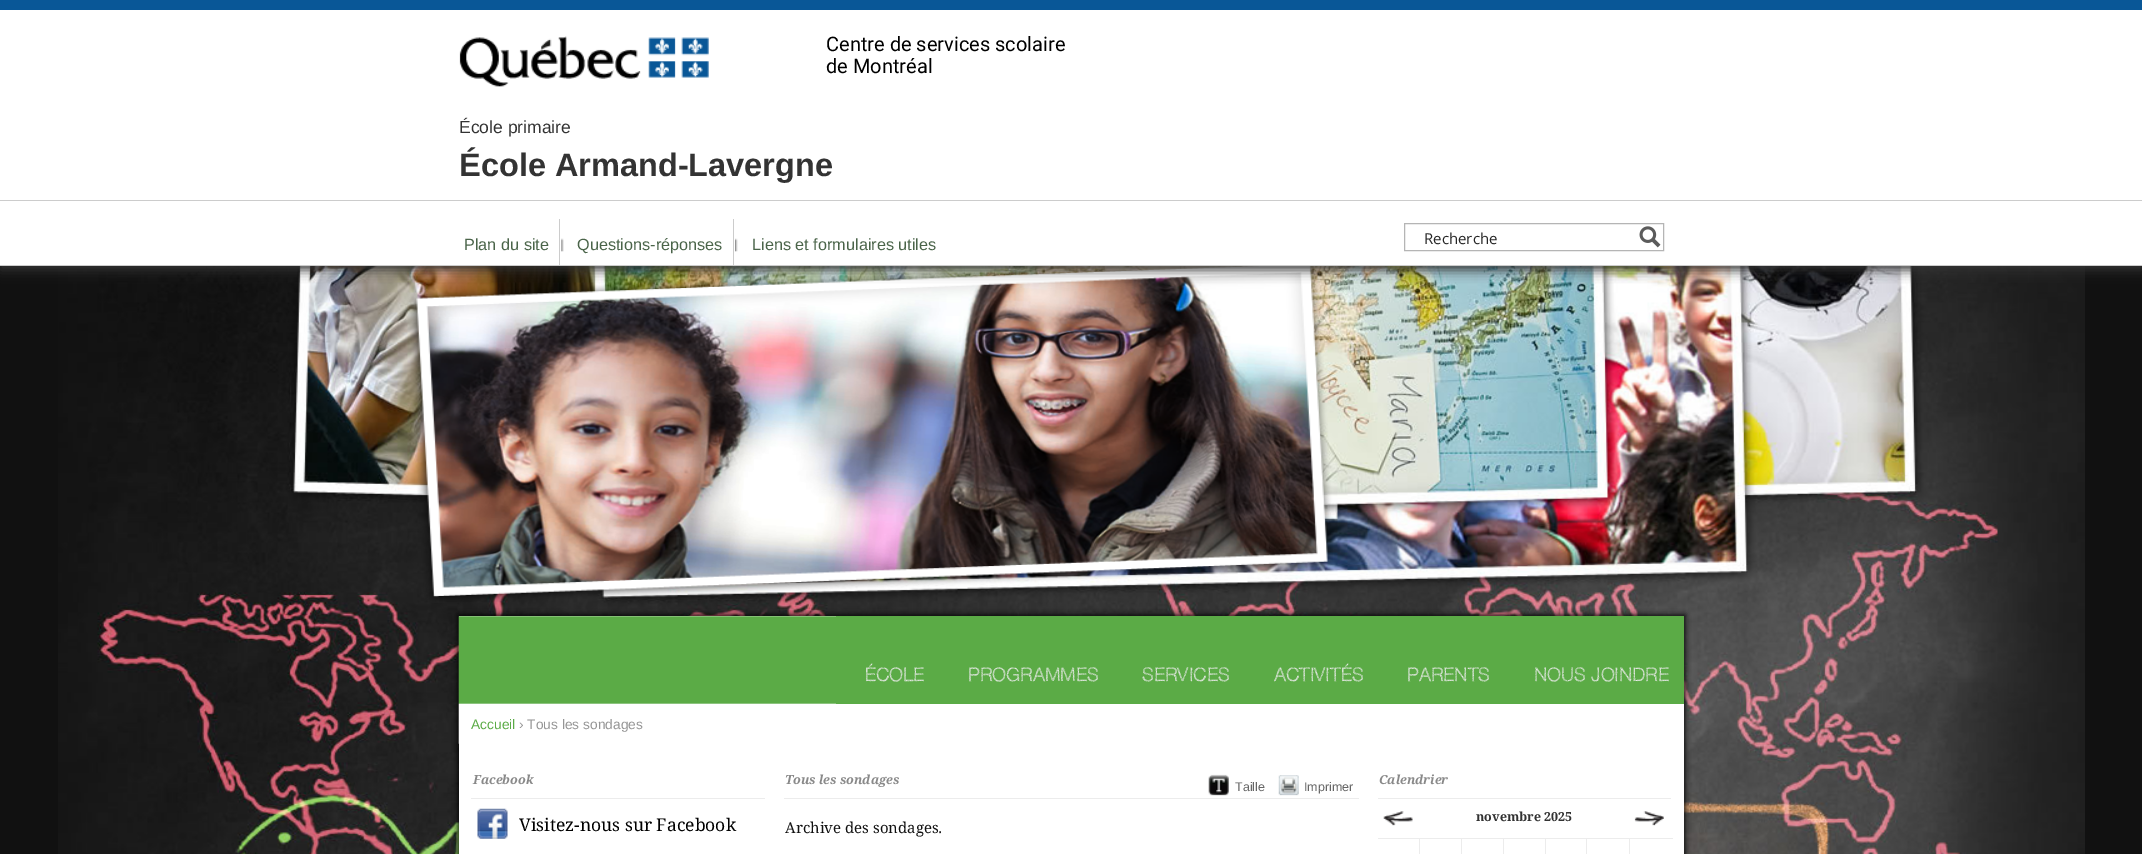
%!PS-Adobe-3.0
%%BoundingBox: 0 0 2142 854
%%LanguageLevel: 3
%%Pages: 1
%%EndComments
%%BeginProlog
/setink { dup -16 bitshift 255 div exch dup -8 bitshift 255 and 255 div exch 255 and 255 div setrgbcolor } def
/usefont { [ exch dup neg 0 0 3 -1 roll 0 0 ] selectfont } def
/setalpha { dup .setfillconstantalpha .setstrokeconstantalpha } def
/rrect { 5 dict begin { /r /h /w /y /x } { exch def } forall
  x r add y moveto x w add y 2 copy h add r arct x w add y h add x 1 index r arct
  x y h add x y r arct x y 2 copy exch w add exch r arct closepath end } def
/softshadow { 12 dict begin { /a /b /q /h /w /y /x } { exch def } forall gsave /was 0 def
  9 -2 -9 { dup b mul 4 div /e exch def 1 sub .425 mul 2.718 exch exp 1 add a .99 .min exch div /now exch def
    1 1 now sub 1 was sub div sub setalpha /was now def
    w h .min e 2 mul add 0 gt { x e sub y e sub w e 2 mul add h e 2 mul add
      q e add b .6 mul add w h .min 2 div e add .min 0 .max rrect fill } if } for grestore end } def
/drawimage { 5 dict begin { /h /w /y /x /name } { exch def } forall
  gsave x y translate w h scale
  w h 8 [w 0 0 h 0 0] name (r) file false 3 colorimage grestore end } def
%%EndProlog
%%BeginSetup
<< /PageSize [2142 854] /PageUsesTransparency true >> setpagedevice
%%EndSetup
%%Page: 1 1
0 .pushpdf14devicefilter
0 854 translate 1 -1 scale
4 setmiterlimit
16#111111 setink
0 0 2142 854 rectfill
(img1.raw) 58 266 2027 588 drawimage
(img6.raw) 407 266 926 336 drawimage
16#333333 setink
0 4 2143 266 0 6 1 softshadow
[
    [0 10 2142 255 16#FFFFFF]
    [0 265 2142 1 16#CCCCCC]
    [0 0 2142 10 16#095797]
] { aload pop setink rectfill } forall
(img2.raw) 459 36 250 51 drawimage
/Roboto-Regular 20 usefont
16#000000 setink
826 51 moveto (Centre de services scolaire) show
826 73 moveto (de Montréal) show
/LiberationSans-Regular 17.5 usefont
16#333333 setink
459 133 moveto (École primaire) show
/LiberationSans-Bold 32.5 usefont
459 176 moveto (École Armand-Lavergne) show
16#CCCCCC setink
0 200 2142 1 rectfill
/LiberationSans-Regular 16.25 usefont
16#4A6449 setink
464 250 moveto (Plan du site) show
(img3.raw) 561 238 3 14 drawimage
16#CCCCCC setink
559 219 1 46 rectfill
16#4A6449 setink
577 250 moveto (Questions-réponses) show
(img4.raw) 735 238 3 14 drawimage
16#CCCCCC setink
733 219 1 46 rectfill
16#4A6449 setink
752 250 moveto (Liens et formulaires utiles) show
16#B5B5B5 setink
1404.5 223.5 259 27 rectstroke
/OpenSans-Regular 15 usefont
16#262626 setink
1424 244 moveto (Recherche) show
(img5.raw) 1639 226 22 22 drawimage
16#000000 setink
458 615 1227 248 0 3 1 softshadow
16#FFFFFF setink
459 616 1225 238 rectfill
(img7.raw) 458 616 1226 128 drawimage
16#5BAB46 setink
836 616 848 88 rectfill
/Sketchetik-Light 18.75 usefont
16#EBEBEB setink
[
    [(ÉCOLE) 865 681]
    [(PROGRAMMES) 968 681]
    [(SERVICES) 1142 681]
    [(ACTIVITÉS) 1274 681]
    [(PARENTS) 1407 681]
    [(NOUS JOINDRE) 1534 681]
] { aload pop moveto show } forall
/LiberationSans-Regular 13.75 usefont
16#5BAB46 setink
471 729 moveto (Accueil) show
16#959595 setink
519 729 moveto (› Tous les sondages) show
16#ECECEC setink
471 798 294 1 rectfill
/DroidSerif-BoldItalic 12.5 usefont
16#898989 setink
473 784 moveto (Facebook) show
(img8.raw) 477 808 31 31 drawimage
/DroidSerif-Regular 17.5 usefont
16#000000 setink
519 831 moveto (Visitez-nous sur Facebook) show
16#ECECEC setink
784 798 575 1 rectfill
/DroidSerif-BoldItalic 12.5 usefont
16#898989 setink
785 784 moveto (Tous les sondages) show
(img9.raw) 1208 774 21 22 drawimage
/LiberationSans-Regular 12.5 usefont
16#666666 setink
1235 791 moveto (Taille) show
(img10.raw) 1278 775 21 21 drawimage
1304 791 moveto (Imprimer) show
/DroidSerif-Regular 15 usefont
16#111111 setink
785 833 moveto (Archive des sondages.) show
16#ECECEC setink
1378 798 293 1 rectfill
/DroidSerif-BoldItalic 12.5 usefont
16#898989 setink
1379 784 moveto (Calendrier) show
(img11.raw) 1383 811 30 15 drawimage
/DroidSerif-Bold 12.5 usefont
16#333333 setink
1476 821 moveto (novembre 2025) show
(img12.raw) 1634 811 30 15 drawimage
[
    [1629 838 44 1 16#ECECEC]
    [1629 838 1 16 16#ECECEC]
    [1586 838 44 1 16#ECECEC]
    [1586 838 1 16 16#ECECEC]
    [1545 838 43 1 16#ECECEC]
    [1545 838 1 16 16#ECECEC]
    [1503 838 43 1 16#ECECEC]
    [1503 838 1 16 16#ECECEC]
    [1461 838 43 1 16#ECECEC]
    [1461 838 1 16 16#ECECEC]
    [1419 838 44 1 16#ECECEC]
    [1419 838 1 16 16#ECECEC]
    [1378 838 42 1 16#ECECEC]
] { aload pop setink rectfill } forall
.poppdf14devicefilter showpage
%%EOF
